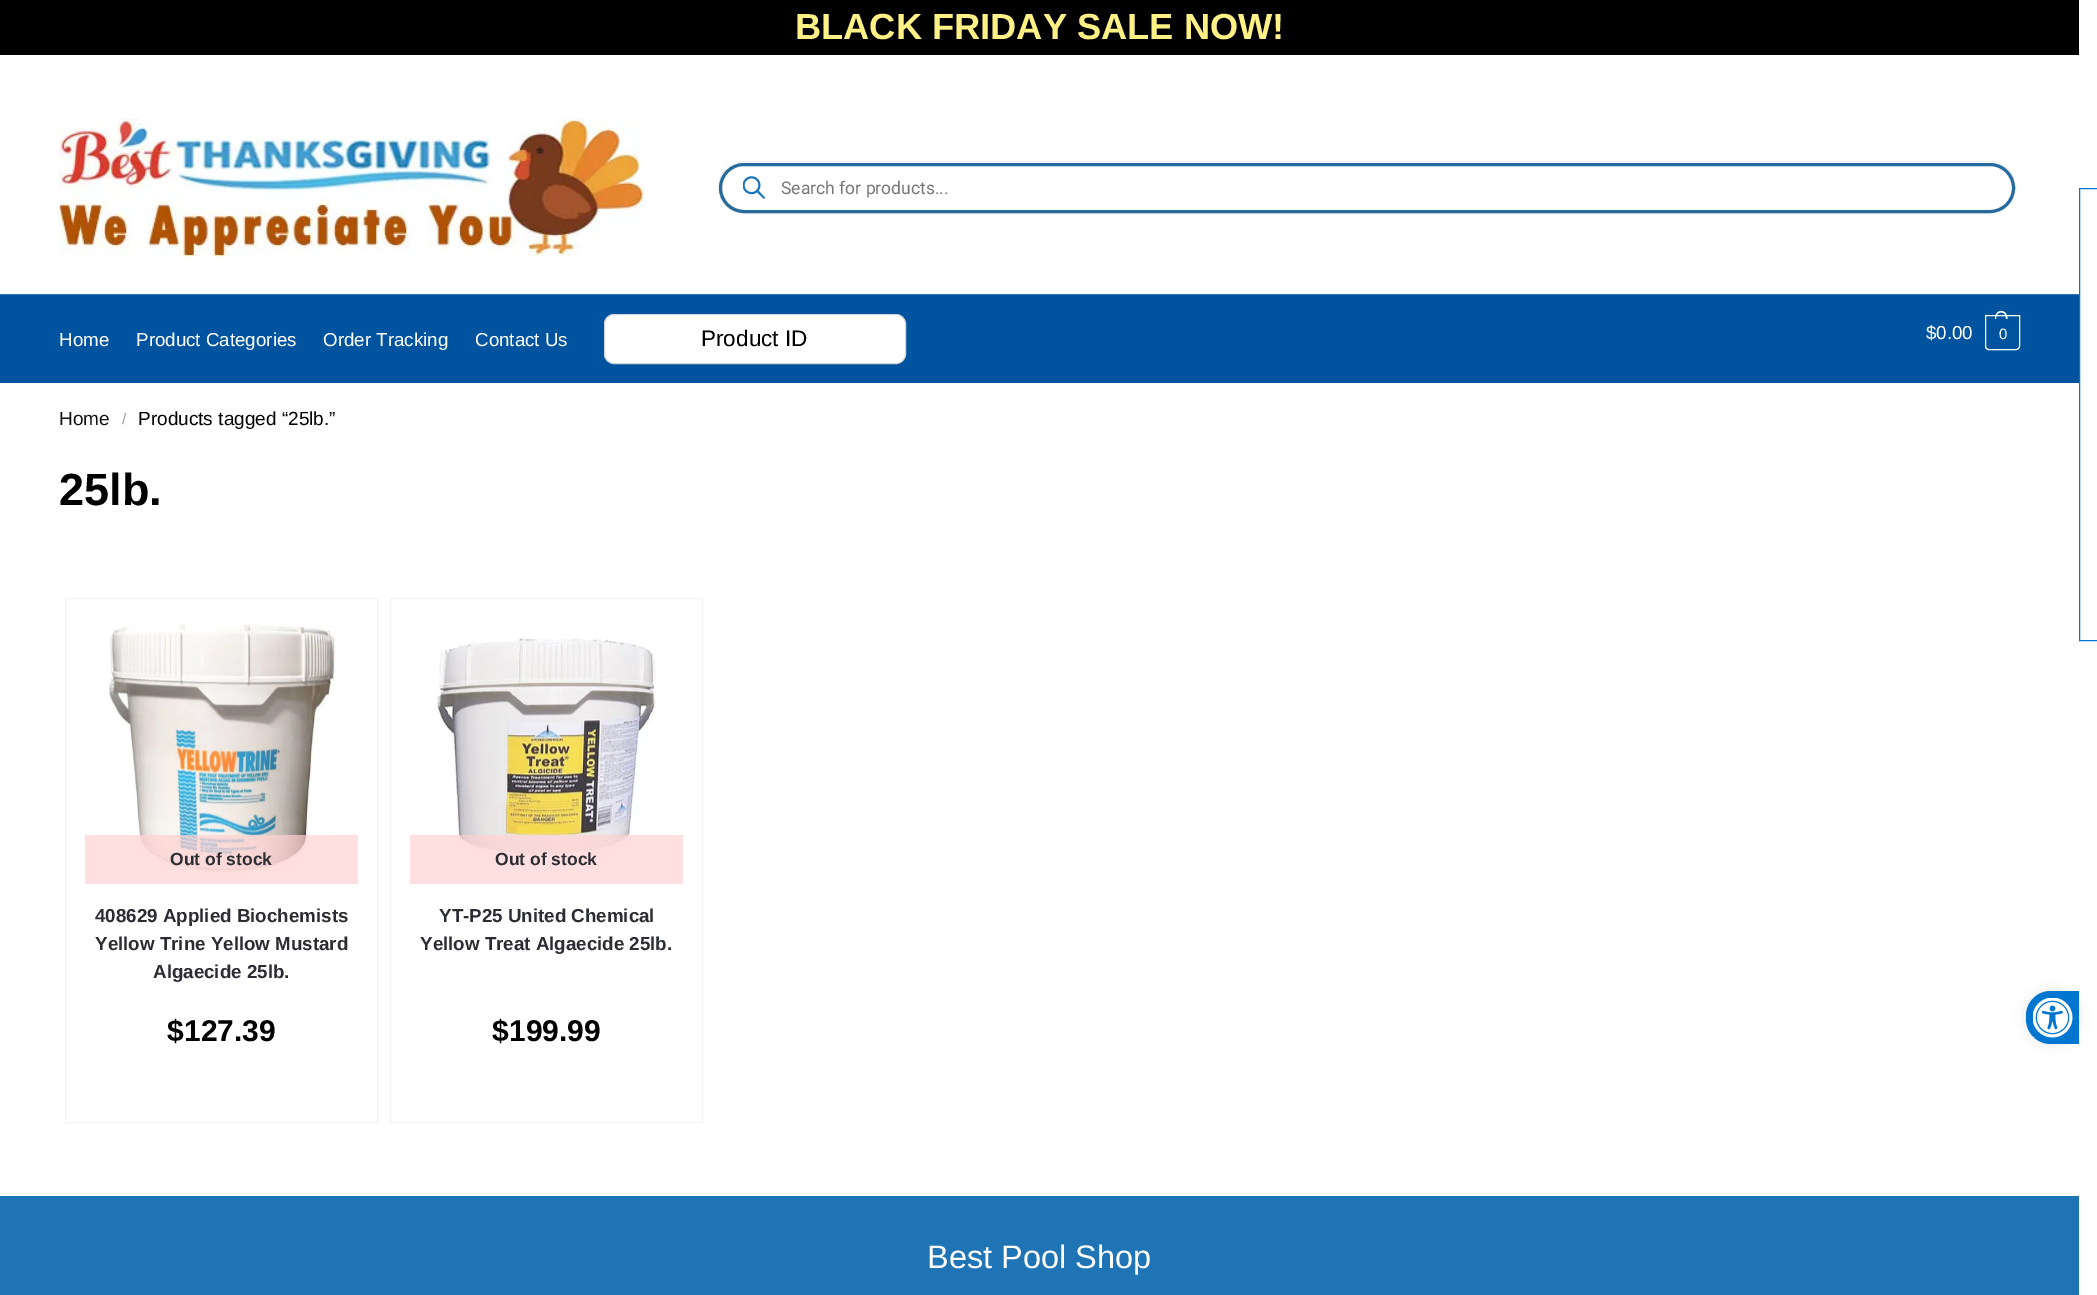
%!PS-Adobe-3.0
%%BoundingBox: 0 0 2097 1295
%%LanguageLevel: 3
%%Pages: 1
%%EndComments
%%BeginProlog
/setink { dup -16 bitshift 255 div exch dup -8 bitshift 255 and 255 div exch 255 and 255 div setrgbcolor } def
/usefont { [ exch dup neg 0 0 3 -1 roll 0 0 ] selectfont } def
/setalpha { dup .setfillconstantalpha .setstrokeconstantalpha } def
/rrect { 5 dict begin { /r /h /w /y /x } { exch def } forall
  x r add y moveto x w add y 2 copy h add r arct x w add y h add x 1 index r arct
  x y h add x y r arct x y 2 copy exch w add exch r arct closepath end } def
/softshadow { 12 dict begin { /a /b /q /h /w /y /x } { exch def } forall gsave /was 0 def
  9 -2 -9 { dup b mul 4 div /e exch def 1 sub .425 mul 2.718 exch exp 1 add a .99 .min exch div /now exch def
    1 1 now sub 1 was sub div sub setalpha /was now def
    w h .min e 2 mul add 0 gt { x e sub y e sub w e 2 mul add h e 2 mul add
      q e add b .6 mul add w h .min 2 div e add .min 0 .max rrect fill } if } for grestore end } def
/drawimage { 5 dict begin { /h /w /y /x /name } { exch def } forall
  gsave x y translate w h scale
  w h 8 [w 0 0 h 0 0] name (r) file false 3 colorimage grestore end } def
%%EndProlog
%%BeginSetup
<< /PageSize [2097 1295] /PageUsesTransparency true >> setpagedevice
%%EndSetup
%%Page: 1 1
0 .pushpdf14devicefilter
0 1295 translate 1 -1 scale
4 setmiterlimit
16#FFFFFF setink
0 0 2097 1295 rectfill
16#000000 setink
0 0 2079 55 rectfill
/LiberationSans-Bold 36.25 usefont
16#FFF186 setink
795 39 moveto (BLACK FRIDAY SALE NOW!) show
(img1.raw) 58 118 588 139 drawimage
16#EEEEEE setink
718.5 161.5 1297 52 26 rrect stroke
16#FFFFFF setink
720.5 164.5 1293 47 23.5 rrect gsave fill grestore
16#266A9E setink
3 setlinewidth
stroke
(img2.raw) 743 176 22 23 drawimage
/Roboto-Regular 17.5 usefont
16#777777 setink
781 194 moveto (Search for products...) show
16#00539F setink
0 295 2079 88 rectfill
16#1E73BE setink
0 294 2079 1 rectfill
/LiberationSans-Regular 18.75 usefont
16#FFFFFF setink
[
    [(Home) 59 346]
    [(Product Categories) 136 346]
    [(Order Tracking) 323 346]
    [(Contact Us) 475 346]
] { aload pop moveto show } forall
604.5 314.5 301 49 9.5 rrect gsave fill grestore
16#D2D6DC setink
1 setlinewidth
stroke
/LiberationSans-Regular 22.5 usefont
16#000000 setink
701 346 moveto (Product ID) show
/LiberationSans-Regular 18.75 usefont
16#FFFFFF setink
1926 339 moveto ($0.00) show
1985.5 315.5 moveto 2019.5 315.5 lineto 2019.5 346 lineto 2019.5 348 2018 349.5 2016 349.5 curveto 1989 349.5 lineto 1987 349.5 1985.5 348 1985.5 346 curveto closepath stroke
2001 311 moveto 2005.5 311 2007.5 315 2007.5 319 curveto 1995 319 lineto 1995 315 1997 311 2001 311 curveto closepath 2001 312.5 moveto 2005 312.5 2006 315.5 2006 319 curveto 1996 319 lineto 1996 315.5 1997.5 312.5 2001 312.5 curveto closepath eofill
/LiberationSans-Regular 15 usefont
1999 339 moveto -1 0 (0) ashow
/LiberationSans-Regular 19 usefont
16#111111 setink
59 425 moveto (Home) show
/LiberationSans-Regular 15 usefont
16#999999 setink
122 424 moveto (/) show
/LiberationSans-Regular 19 usefont
16#000000 setink
138 425 moveto (Products tagged “25lb.”) show
/LiberationSans-Bold 45 usefont
59 505 moveto (25lb.) show
16#F3F3F3 setink
65.5 598.5 312 524 rectstroke
(img3.raw) 109 624 227 249 drawimage
0.7 setalpha
16#FFD1D1 setink
85 835 273 49 rectfill
/LiberationSans-Bold 17.5 usefont
1 setalpha
16#2C2D33 setink
170 865 moveto (Out of stock) show
/LiberationSans-Bold 18.75 usefont
[
    [(408629 Applied Biochemists) 95 922]
    [(Yellow Trine Yellow Mustard) 95 950]
    [(Algaecide 25lb.) 153 978]
] { aload pop moveto show } forall
/LiberationSans-Bold 30 usefont
16#000000 setink
167 1041 moveto ($) show
184 1041 moveto (127.39) show
16#F3F3F3 setink
390.5 598.5 312 524 rectstroke
(img4.raw) 437 638 219 217 drawimage
0.7 setalpha
16#FFD1D1 setink
410 835 273 49 rectfill
/LiberationSans-Bold 17.5 usefont
1 setalpha
16#2C2D33 setink
495 865 moveto (Out of stock) show
/LiberationSans-Bold 18.75 usefont
439 922 moveto (YT-P25 United Chemical) show
420 950 moveto (Yellow Treat Algaecide 25lb.) show
/LiberationSans-Bold 30 usefont
16#000000 setink
492 1041 moveto ($) show
509 1041 moveto (199.99) show
16#1F74B5 setink
0 1196 2079 99 rectfill
/LiberationSans-Regular 32.5 usefont
16#FFFFFF setink
927 1268 moveto (Best Pool Shop) show
16#0076D1 setink
2079.5 188.5 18 452 rectstroke
16#000000 setink
2026 991 53 53 25 6 0.1 softshadow
16#0076D1 setink
2051 991 moveto 2079 991 lineto 2079 1044 lineto 2051 1044 lineto 2037 1044 2026 1033 2026 1019 curveto 2026 1016 lineto 2026 1002 2037 991 2051 991 curveto closepath fill
(img5.raw) 2033 998 40 40 drawimage
.poppdf14devicefilter showpage
%%EOF
